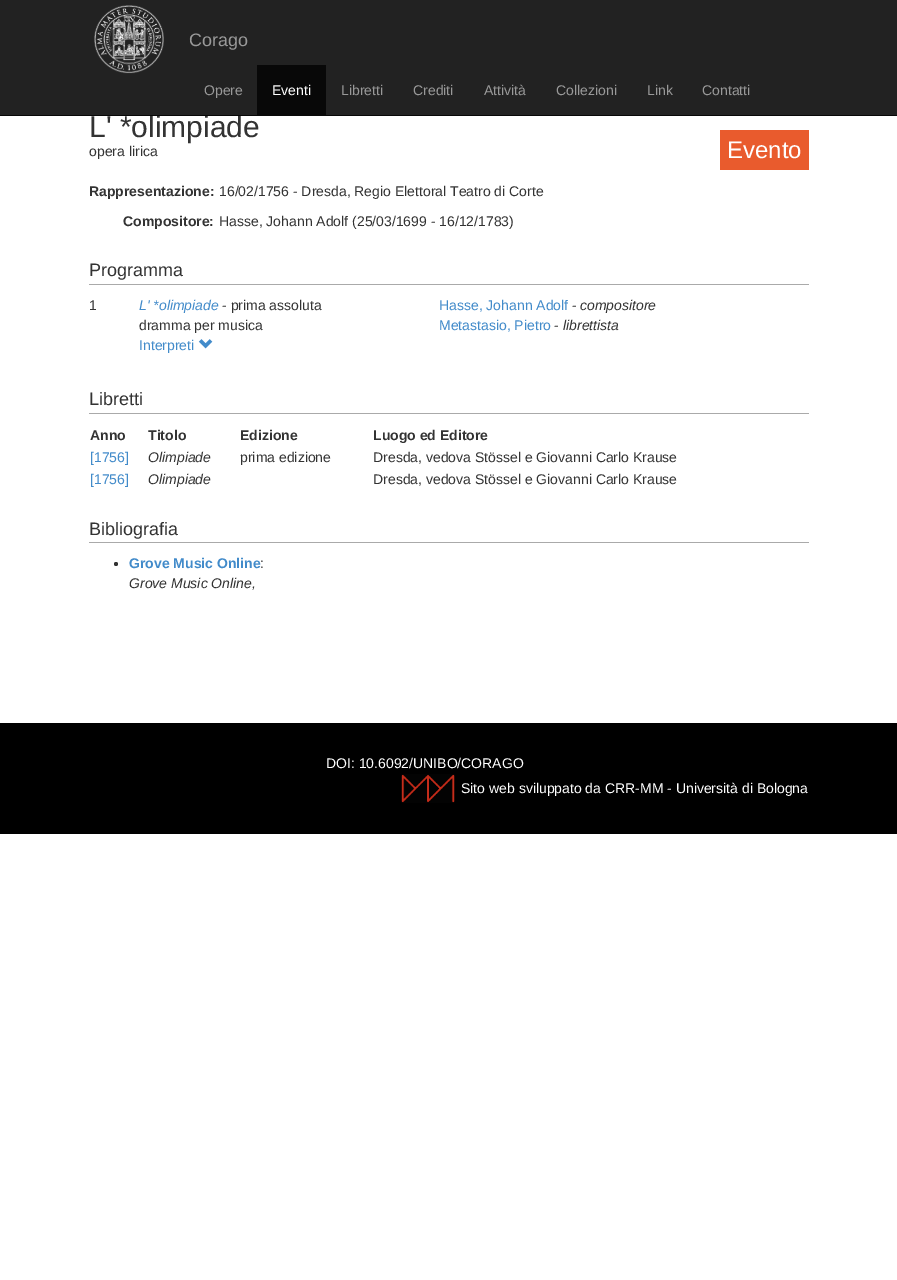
%!PS-Adobe-3.0
%%BoundingBox: 0 0 897 1280
%%LanguageLevel: 3
%%Pages: 1
%%EndComments
%%BeginProlog
/setink { dup -16 bitshift 255 div exch dup -8 bitshift 255 and 255 div exch 255 and 255 div setrgbcolor } def
/usefont { [ exch dup neg 0 0 3 -1 roll 0 0 ] selectfont } def
/disc { newpath 0 360 arc closepath } def
/drawimage { 5 dict begin { /h /w /y /x /name } { exch def } forall
  gsave x y translate w h scale
  w h 8 [w 0 0 h 0 0] name (r) file false 3 colorimage grestore end } def
%%EndProlog
%%BeginSetup
<< /PageSize [897 1280] >> setpagedevice
%%EndSetup
%%Page: 1 1
0 1280 translate 1 -1 scale
4 setmiterlimit
16#FFFFFF setink
0 0 897 1280 rectfill
16#222222 setink
0 0 897 115 rectfill
/LiberationSans-Regular 30 usefont
16#333333 setink
89 137 moveto (L' *olimpiade) show
16#080808 setink
0 115 897 1 rectfill
(img1.raw) 94 5 70 69 drawimage
/LiberationSans-Regular 18 usefont
16#999999 setink
189 46 moveto (Corago) show
/LiberationSans-Regular 14 usefont
204 95 moveto (Opere) show
16#080808 setink
257 65 69 50 rectfill
16#FFFFFF setink
272 95 moveto (Eventi) show
16#999999 setink
[
    [(Libretti) 341 95]
    [(Crediti) 413 95]
    [(Attività) 484 95]
    [(Collezioni) 556 95]
    [(Link) 647 95]
    [(Contatti) 702 95]
] { aload pop moveto show } forall
16#333333 setink
89 156 moveto (opera lirica) show
16#E95B2D setink
720 130 89 40 rectfill
/LiberationSans-Regular 24 usefont
16#FFFFFF setink
727 158 moveto (Evento) show
/LiberationSans-Bold 14 usefont
16#333333 setink
89 196 moveto (Rappresentazione:) show
/LiberationSans-Regular 14 usefont
219 196 moveto (16/02/1756 - Dresda, Regio Elettoral Teatro di Corte) show
/LiberationSans-Bold 14 usefont
123 226 moveto (Compositore:) show
/LiberationSans-Regular 14 usefont
219 226 moveto (Hasse, Johann Adolf \(25/03/1699 - 16/12/1783\)) show
16#AAAAAA setink
89 284 720 1 rectfill
/LiberationSans-Regular 18 usefont
16#333333 setink
89 276 moveto (Programma) show
/LiberationSans-Regular 14 usefont
89 310 moveto (1) show
/LiberationSans-Italic 14 usefont
16#428BCA setink
139 310 moveto (L' *olimpiade) show
/LiberationSans-Regular 14 usefont
16#333333 setink
222 310 moveto (- prima assoluta) show
139 330 moveto (dramma per musica) show
16#428BCA setink
439 310 moveto (Hasse, Johann Adolf) show
16#333333 setink
572 310 moveto (-) show
/LiberationSans-Italic 14 usefont
580 310 moveto (compositore) show
/LiberationSans-Regular 14 usefont
16#428BCA setink
439 330 moveto (Metastasio, Pietro) show
16#333333 setink
554 330 moveto (-) show
/LiberationSans-Italic 14 usefont
563 330 moveto (librettista) show
/LiberationSans-Regular 14 usefont
16#428BCA setink
139 350 moveto (Interpreti) show
(img2.raw) 198 339 15 10 drawimage
16#AAAAAA setink
89 413 720 1 rectfill
/LiberationSans-Regular 18 usefont
16#333333 setink
89 405 moveto (Libretti) show
/LiberationSans-Bold 14 usefont
[
    [(Anno) 90 440]
    [(Titolo) 148 440]
    [(Edizione) 240 440]
    [(Luogo ed Editore) 373 440]
] { aload pop moveto show } forall
/LiberationSans-Regular 14 usefont
16#428BCA setink
90 462 moveto ([1756]) show
/LiberationSans-Italic 14 usefont
16#333333 setink
148 462 moveto (Olimpiade) show
/LiberationSans-Regular 14 usefont
240 462 moveto (prima edizione) show
373 462 moveto (Dresda, vedova Stössel e Giovanni Carlo Krause) show
16#428BCA setink
90 484 moveto ([1756]) show
/LiberationSans-Italic 14 usefont
16#333333 setink
148 484 moveto (Olimpiade) show
/LiberationSans-Regular 14 usefont
373 484 moveto (Dresda, vedova Stössel e Giovanni Carlo Krause) show
16#AAAAAA setink
89 542 720 1 rectfill
/LiberationSans-Regular 18 usefont
16#333333 setink
89 535 moveto (Bibliografia) show
116 564 2 disc fill
/LiberationSans-Bold 14 usefont
16#428BCA setink
129 568 moveto (Grove Music Online) show
/LiberationSans-Regular 14 usefont
16#333333 setink
260 568 moveto (:) show
/LiberationSans-Italic 14 usefont
129 588 moveto (Grove Music Online,) show
16#000000 setink
0 723 897 111 rectfill
/LiberationSans-Regular 14 usefont
16#FFFFFF setink
326 768 moveto (DOI: 10.6092/UNIBO/CORAGO) show
(img3.raw) 401 774 54 29 drawimage
461 793 moveto (Sito web sviluppato da CRR-MM - Università di Bologna) show
showpage
%%EOF
